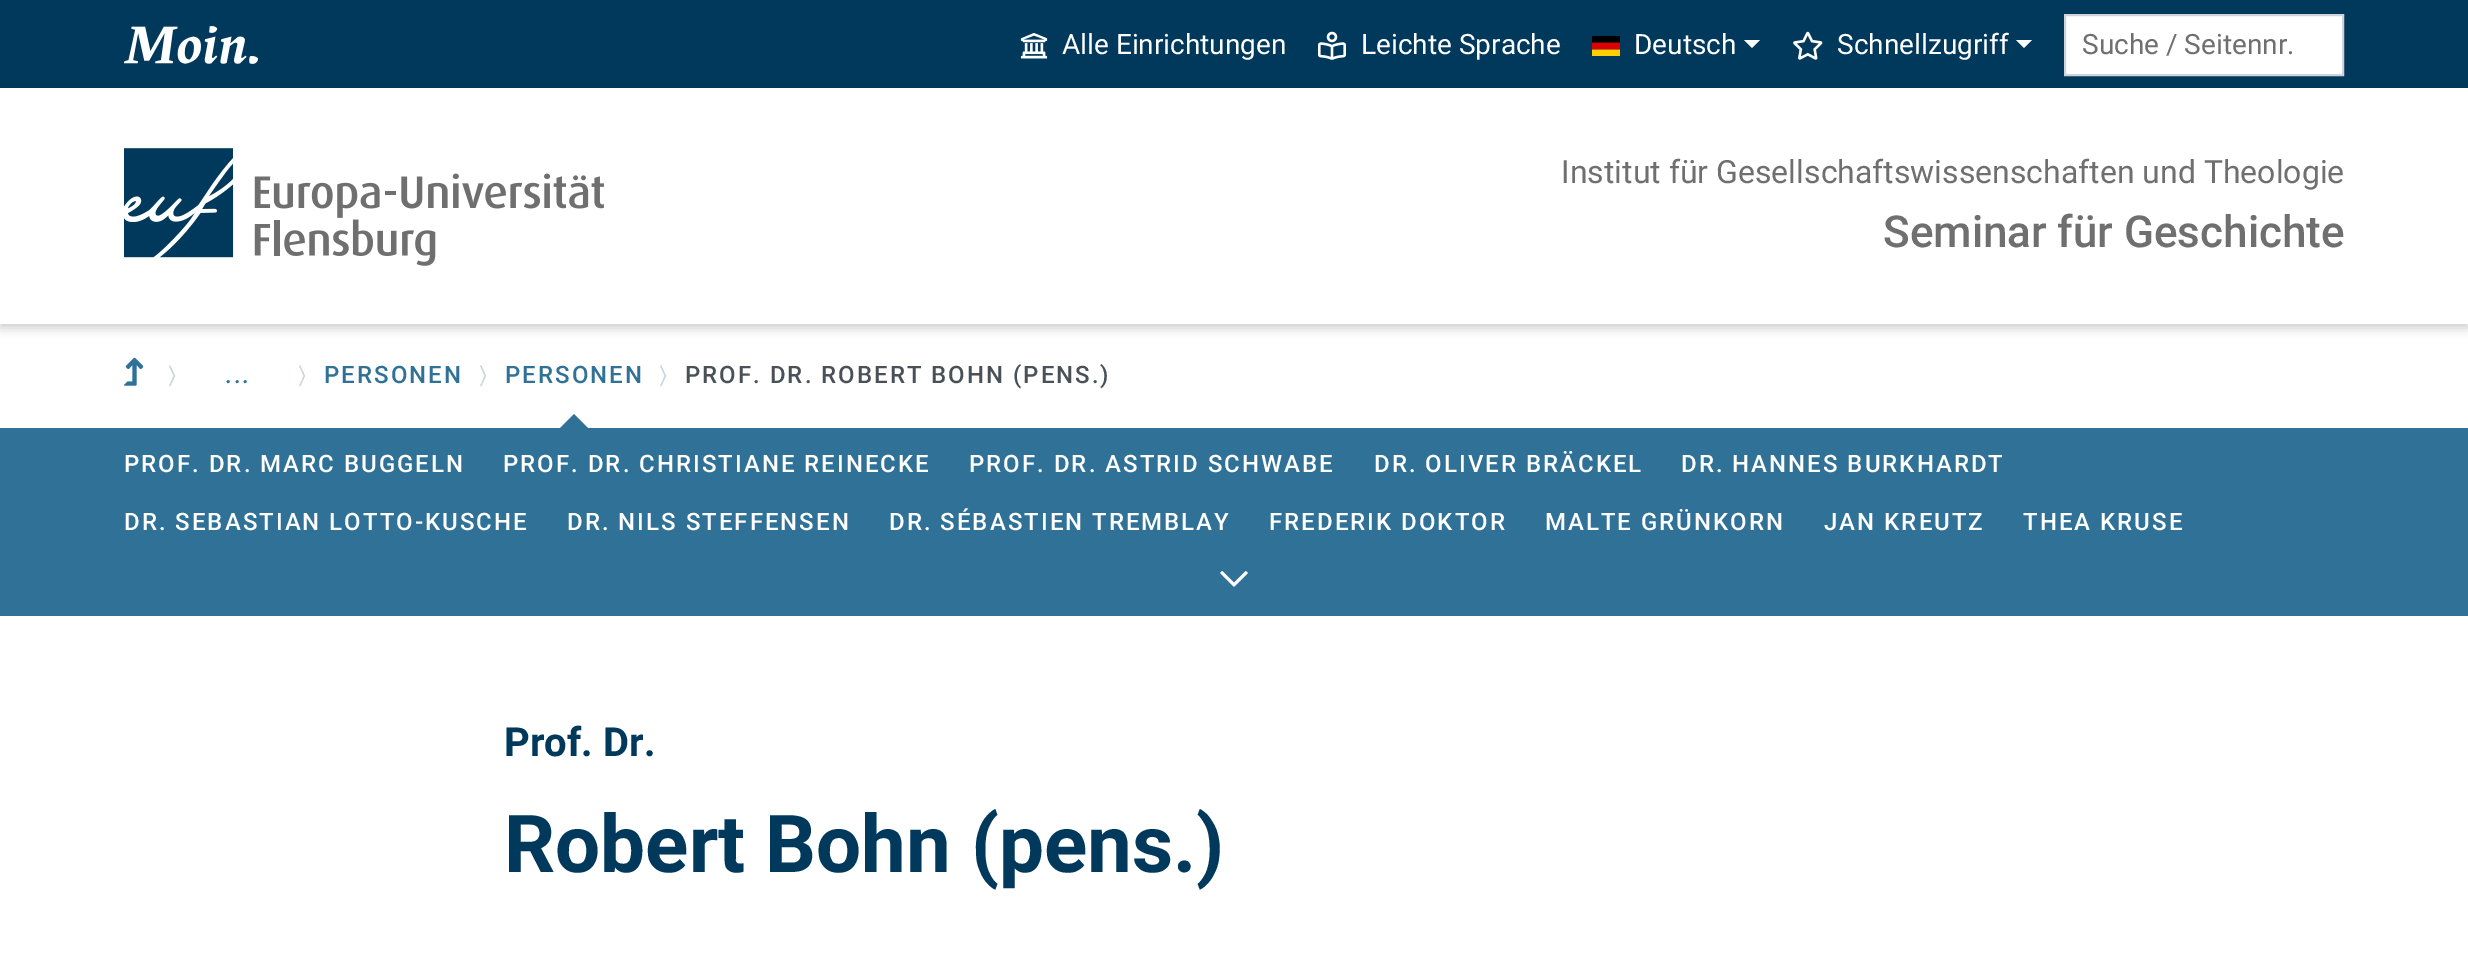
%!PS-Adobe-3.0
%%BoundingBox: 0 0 2468 972
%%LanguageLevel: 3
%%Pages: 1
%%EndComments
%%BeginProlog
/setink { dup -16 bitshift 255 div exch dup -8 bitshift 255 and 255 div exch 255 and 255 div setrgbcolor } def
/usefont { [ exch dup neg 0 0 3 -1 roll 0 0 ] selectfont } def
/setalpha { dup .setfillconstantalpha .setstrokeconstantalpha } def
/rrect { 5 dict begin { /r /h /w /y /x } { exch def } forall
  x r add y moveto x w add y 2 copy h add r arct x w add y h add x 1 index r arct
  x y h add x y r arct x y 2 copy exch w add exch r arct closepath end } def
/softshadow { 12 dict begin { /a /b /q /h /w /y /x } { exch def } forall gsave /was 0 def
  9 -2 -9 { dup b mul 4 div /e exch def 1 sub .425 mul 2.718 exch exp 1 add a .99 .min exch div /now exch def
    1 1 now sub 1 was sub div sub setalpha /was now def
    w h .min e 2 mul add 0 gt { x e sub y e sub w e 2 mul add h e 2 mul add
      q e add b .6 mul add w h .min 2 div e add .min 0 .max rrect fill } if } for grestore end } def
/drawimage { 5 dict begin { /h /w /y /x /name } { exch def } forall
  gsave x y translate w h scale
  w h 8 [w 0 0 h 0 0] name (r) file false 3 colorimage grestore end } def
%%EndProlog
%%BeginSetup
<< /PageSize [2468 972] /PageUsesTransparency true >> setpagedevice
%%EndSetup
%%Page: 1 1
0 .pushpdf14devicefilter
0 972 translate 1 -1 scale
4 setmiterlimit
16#FFFFFF setink
0 0 2468 972 rectfill
16#00395B setink
0 0 2468 88 rectfill
(img1.raw) 124 26 134 38 drawimage
(img2.raw) 1020 33 28 26 drawimage
/Roboto-Regular 28 usefont
16#FFFFFF setink
1062 54 moveto (Alle Einrichtungen) show
(img3.raw) 1318 31 28 29 drawimage
1361 54 moveto (Leichte Sprache) show
(img4.raw) 1592 36 28 20 drawimage
1634 54 moveto (Deutsch) show
1744 40 moveto 1760 40 lineto 1752 48 lineto closepath fill
(img5.raw) 1793 31 30 29 drawimage
1837 54 moveto (Schnellzugriff) show
2016 40 moveto 2032 40 lineto 2024 48 lineto closepath fill
2065 15 moveto 2343 15 lineto 2343 75 lineto 2065 75 lineto closepath gsave fill grestore
16#CED4DA setink
2 setlinewidth
stroke
16#6F6F6F setink
2082 54 moveto (Suche / Seitennr.) show
gsave
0 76 moveto 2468 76 lineto 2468 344 lineto 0 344 lineto closepath 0 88 moveto 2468 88 lineto 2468 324 lineto 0 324 lineto closepath eoclip newpath
16#000000 setink
0 92 2468 236 0 5 0.2 softshadow
grestore
(img6.raw) 124 148 480 118 drawimage
/Roboto-Regular 32 usefont
1561 183 moveto (Institut für Gesellschaftswissenschaften und Theologie) show
/Roboto-Medium 44 usefont
1883 247 moveto (Seminar für Geschichte) show
(img7.raw) 124 357 20 29 drawimage
/FreeSans-Regular 24 usefont
16#CED4DA setink
168 383 moveto 2 0 (〉) ashow
/Roboto-Medium 24 usefont
16#307197 setink
225 383 moveto 2 0 (...) ashow
/FreeSans-Regular 24 usefont
16#CED4DA setink
298 383 moveto 2 0 (〉) ashow
/Roboto-Medium 24 usefont
16#307197 setink
324 383 moveto 2 0 (PERSONEN) ashow
/FreeSans-Regular 24 usefont
16#CED4DA setink
479 383 moveto 2 0 (〉) ashow
/Roboto-Medium 24 usefont
16#307197 setink
505 383 moveto 2 0 (PERSONEN) ashow
588 428 moveto 560 428 lineto 574 414 lineto closepath fill
/FreeSans-Regular 24 usefont
16#CED4DA setink
659 383 moveto 2 0 (〉) ashow
/Roboto-Medium 24 usefont
16#495057 setink
685 383 moveto 2 0 (PROF. DR. ROBERT BOHN \(PENS.\)) ashow
16#307197 setink
0 428 2468 188 rectfill
16#FFFFFF setink
124 472 moveto 2 0 (PROF. DR. MARC BUGGELN) ashow
503 472 moveto 2 0 (PROF. DR. CHRISTIANE REINECKE) ashow
969 472 moveto 2 0 (PROF. DR. ASTRID SCHWABE) ashow
1374 472 moveto 2 0 (DR. OLIVER BRÄCKEL) ashow
1681 472 moveto 2 0 (DR. HANNES BURKHARDT) ashow
124 530 moveto 2 0 (DR. SEBASTIAN LOTTO-KUSCHE) ashow
567 530 moveto 2 0 (DR. NILS STEFFENSEN) ashow
889 530 moveto 2 0 (DR. SÉBASTIEN TREMBLAY) ashow
1269 530 moveto 2 0 (FREDERIK DOKTOR) ashow
1545 530 moveto 2 0 (MALTE GRÜNKORN) ashow
1824 530 moveto 2 0 (JAN KREUTZ) ashow
2023 530 moveto 2 0 (THEA KRUSE) ashow
(img8.raw) 1220 571 28 16 drawimage
/Roboto-Bold 40 usefont
16#00395B setink
504 756 moveto (Prof. Dr.) show
/Roboto-Bold 80 usefont
504 872 moveto (Robert Bohn \(pens.\)) show
.poppdf14devicefilter showpage
%%EOF
